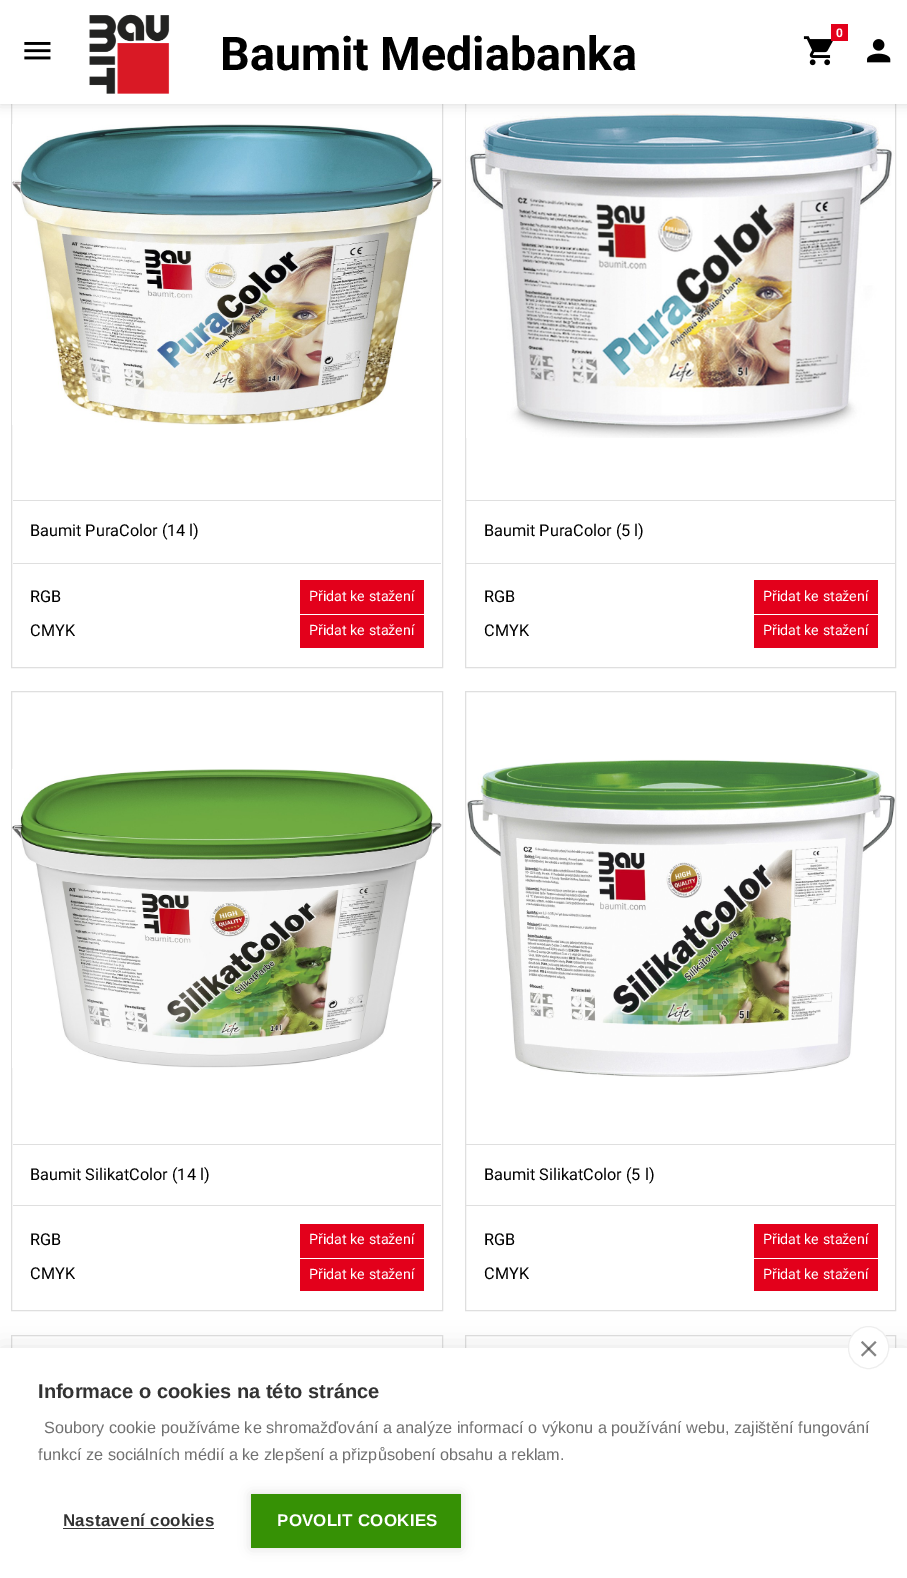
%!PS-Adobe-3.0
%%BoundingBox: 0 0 907 1578
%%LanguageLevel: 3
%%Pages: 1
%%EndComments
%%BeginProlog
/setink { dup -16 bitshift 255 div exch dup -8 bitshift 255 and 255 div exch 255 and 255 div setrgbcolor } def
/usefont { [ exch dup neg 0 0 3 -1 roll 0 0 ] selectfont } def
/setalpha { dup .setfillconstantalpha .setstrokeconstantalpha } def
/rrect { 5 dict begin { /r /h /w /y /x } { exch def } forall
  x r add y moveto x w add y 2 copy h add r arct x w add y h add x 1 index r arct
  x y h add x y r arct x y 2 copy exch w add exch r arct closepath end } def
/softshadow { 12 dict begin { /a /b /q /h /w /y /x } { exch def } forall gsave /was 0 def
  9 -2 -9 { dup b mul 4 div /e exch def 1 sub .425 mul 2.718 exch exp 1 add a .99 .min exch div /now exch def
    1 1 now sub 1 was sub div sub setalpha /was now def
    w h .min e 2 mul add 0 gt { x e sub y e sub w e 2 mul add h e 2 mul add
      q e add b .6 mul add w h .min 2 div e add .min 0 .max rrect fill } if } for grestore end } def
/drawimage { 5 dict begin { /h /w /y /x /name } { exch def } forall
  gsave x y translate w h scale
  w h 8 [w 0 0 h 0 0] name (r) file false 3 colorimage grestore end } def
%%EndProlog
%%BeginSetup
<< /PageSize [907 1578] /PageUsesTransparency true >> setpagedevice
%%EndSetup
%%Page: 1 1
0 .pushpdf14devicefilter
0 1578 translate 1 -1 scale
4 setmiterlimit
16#FFFFFF setink
0 0 907 1578 rectfill
16#DFDFDF setink
11.5 48.5 431 619 rectstroke
465.5 48.5 430 619 rectstroke
(img6.raw) 466 112 429 326 drawimage
16#000000 setink
0 0 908 104 0 6 0.15 softshadow
16#FFFFFF setink
0 0 907 104 rectfill
(img1.raw) 803 36 30 30 drawimage
16#E3001B setink
831 24 17 17 rectfill
/Roboto-Bold 12 usefont
16#FFFFFF setink
836 37 moveto (0) show
(img2.raw) 24 42 27 18 drawimage
(img3.raw) 89 14 81 80 drawimage
/Roboto-Bold 46.5 usefont
16#000000 setink
220 70 moveto (Baumit Mediabanka) show
(img4.raw) 867 39 24 24 drawimage
16#DFDFDF setink
13 500 428 1 rectfill
(img5.raw) 12 124 430 301 drawimage
/Roboto-Regular 16.25 usefont
16#000000 setink
30 536 moveto (Baumit PuraColor \(14 l\)) show
16#DFDFDF setink
13 563 428 1 rectfill
16#000000 setink
30 602 moveto (RGB) show
16#E3001B setink
300 580 124 34 rectfill
/Roboto-Regular 14.25 usefont
16#FFFFFF setink
309 601 moveto (Přidat ke stažení) show
/Roboto-Regular 16.25 usefont
16#000000 setink
30 636 moveto (CMYK) show
16#E3001B setink
300 615 124 33 rectfill
/Roboto-Regular 14.25 usefont
16#FFFFFF setink
309 635 moveto (Přidat ke stažení) show
16#DFDFDF setink
466 500 429 1 rectfill
/Roboto-Regular 16.25 usefont
16#000000 setink
484 536 moveto (Baumit PuraColor \(5 l\)) show
16#DFDFDF setink
466 563 429 1 rectfill
16#000000 setink
484 602 moveto (RGB) show
16#E3001B setink
754 580 124 34 rectfill
/Roboto-Regular 14.25 usefont
16#FFFFFF setink
763 601 moveto (Přidat ke stažení) show
/Roboto-Regular 16.25 usefont
16#000000 setink
484 636 moveto (CMYK) show
16#E3001B setink
754 615 124 33 rectfill
/Roboto-Regular 14.25 usefont
16#FFFFFF setink
763 635 moveto (Přidat ke stažení) show
16#DFDFDF setink
11.5 691.5 431 619 rectstroke
13 1144 428 1 rectfill
(img7.raw) 12 769 430 299 drawimage
/Roboto-Regular 16.25 usefont
16#000000 setink
30 1180 moveto (Baumit SilikatColor \(14 l\)) show
16#DFDFDF setink
13 1205 428 1 rectfill
16#000000 setink
30 1245 moveto (RGB) show
16#E3001B setink
300 1224 124 34 rectfill
/Roboto-Regular 14.25 usefont
16#FFFFFF setink
309 1244 moveto (Přidat ke stažení) show
/Roboto-Regular 16.25 usefont
16#000000 setink
30 1279 moveto (CMYK) show
16#E3001B setink
300 1259 124 32 rectfill
/Roboto-Regular 14.25 usefont
16#FFFFFF setink
309 1279 moveto (Přidat ke stažení) show
16#DFDFDF setink
465.5 691.5 430 619 rectstroke
466 1144 429 1 rectfill
(img8.raw) 467 759 428 318 drawimage
/Roboto-Regular 16.25 usefont
16#000000 setink
484 1180 moveto (Baumit SilikatColor \(5 l\)) show
16#DFDFDF setink
466 1205 429 1 rectfill
16#000000 setink
484 1245 moveto (RGB) show
16#E3001B setink
754 1224 124 34 rectfill
/Roboto-Regular 14.25 usefont
16#FFFFFF setink
763 1244 moveto (Přidat ke stažení) show
/Roboto-Regular 16.25 usefont
16#000000 setink
484 1279 moveto (CMYK) show
16#E3001B setink
754 1259 124 32 rectfill
/Roboto-Regular 14.25 usefont
16#FFFFFF setink
763 1279 moveto (Přidat ke stažení) show
16#DFDFDF setink
11.5 1335.5 431 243 rectstroke
465.5 1335.5 430 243 rectstroke
16#000000 setink
0 1348 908 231 0 12.5 0.1 softshadow
16#FFFFFF setink
0 1348 907 230 rectfill
848.5 1326.5 40 42 20 rrect gsave fill grestore
16#EEEEEE setink
stroke
16#858585 setink
861 1355 moveto 875 1341 lineto 876.5 1342.5 lineto 862.5 1356.5 lineto closepath fill
0.6 setalpha
16#333333 setink
862.5 1341 moveto 876.5 1355 lineto 875 1356.5 lineto 861 1342.5 lineto closepath fill
/LiberationSans-Bold 20 usefont
1 setalpha
38 1398 moveto (Informace o cookies na této stránce) show
/LiberationSans-Regular 16.25 usefont
16#707070 setink
44 1433 moveto (Soubory cookie používáme ke shromažďování a analýze informací o výkonu a používání webu, zajištění fungování) show
38 1460 moveto (funkcí ze sociálních médií a ke zlepšení a přizpůsobení obsahu a reklam.) show
/LiberationSans-Bold 16.9 usefont
16#333333 setink
63 1526 moveto 0.25 0 (Nastavení cookies) ashow
63 1528 151 1 rectfill
16#000000 setink
251 1494 210 54 0 6 0.12 softshadow
16#369105 setink
251 1494 210 54 rectfill
16#FFFFFF setink
277 1526 moveto 0.25 0 (POVOLIT COOKIES) ashow
.poppdf14devicefilter showpage
%%EOF
